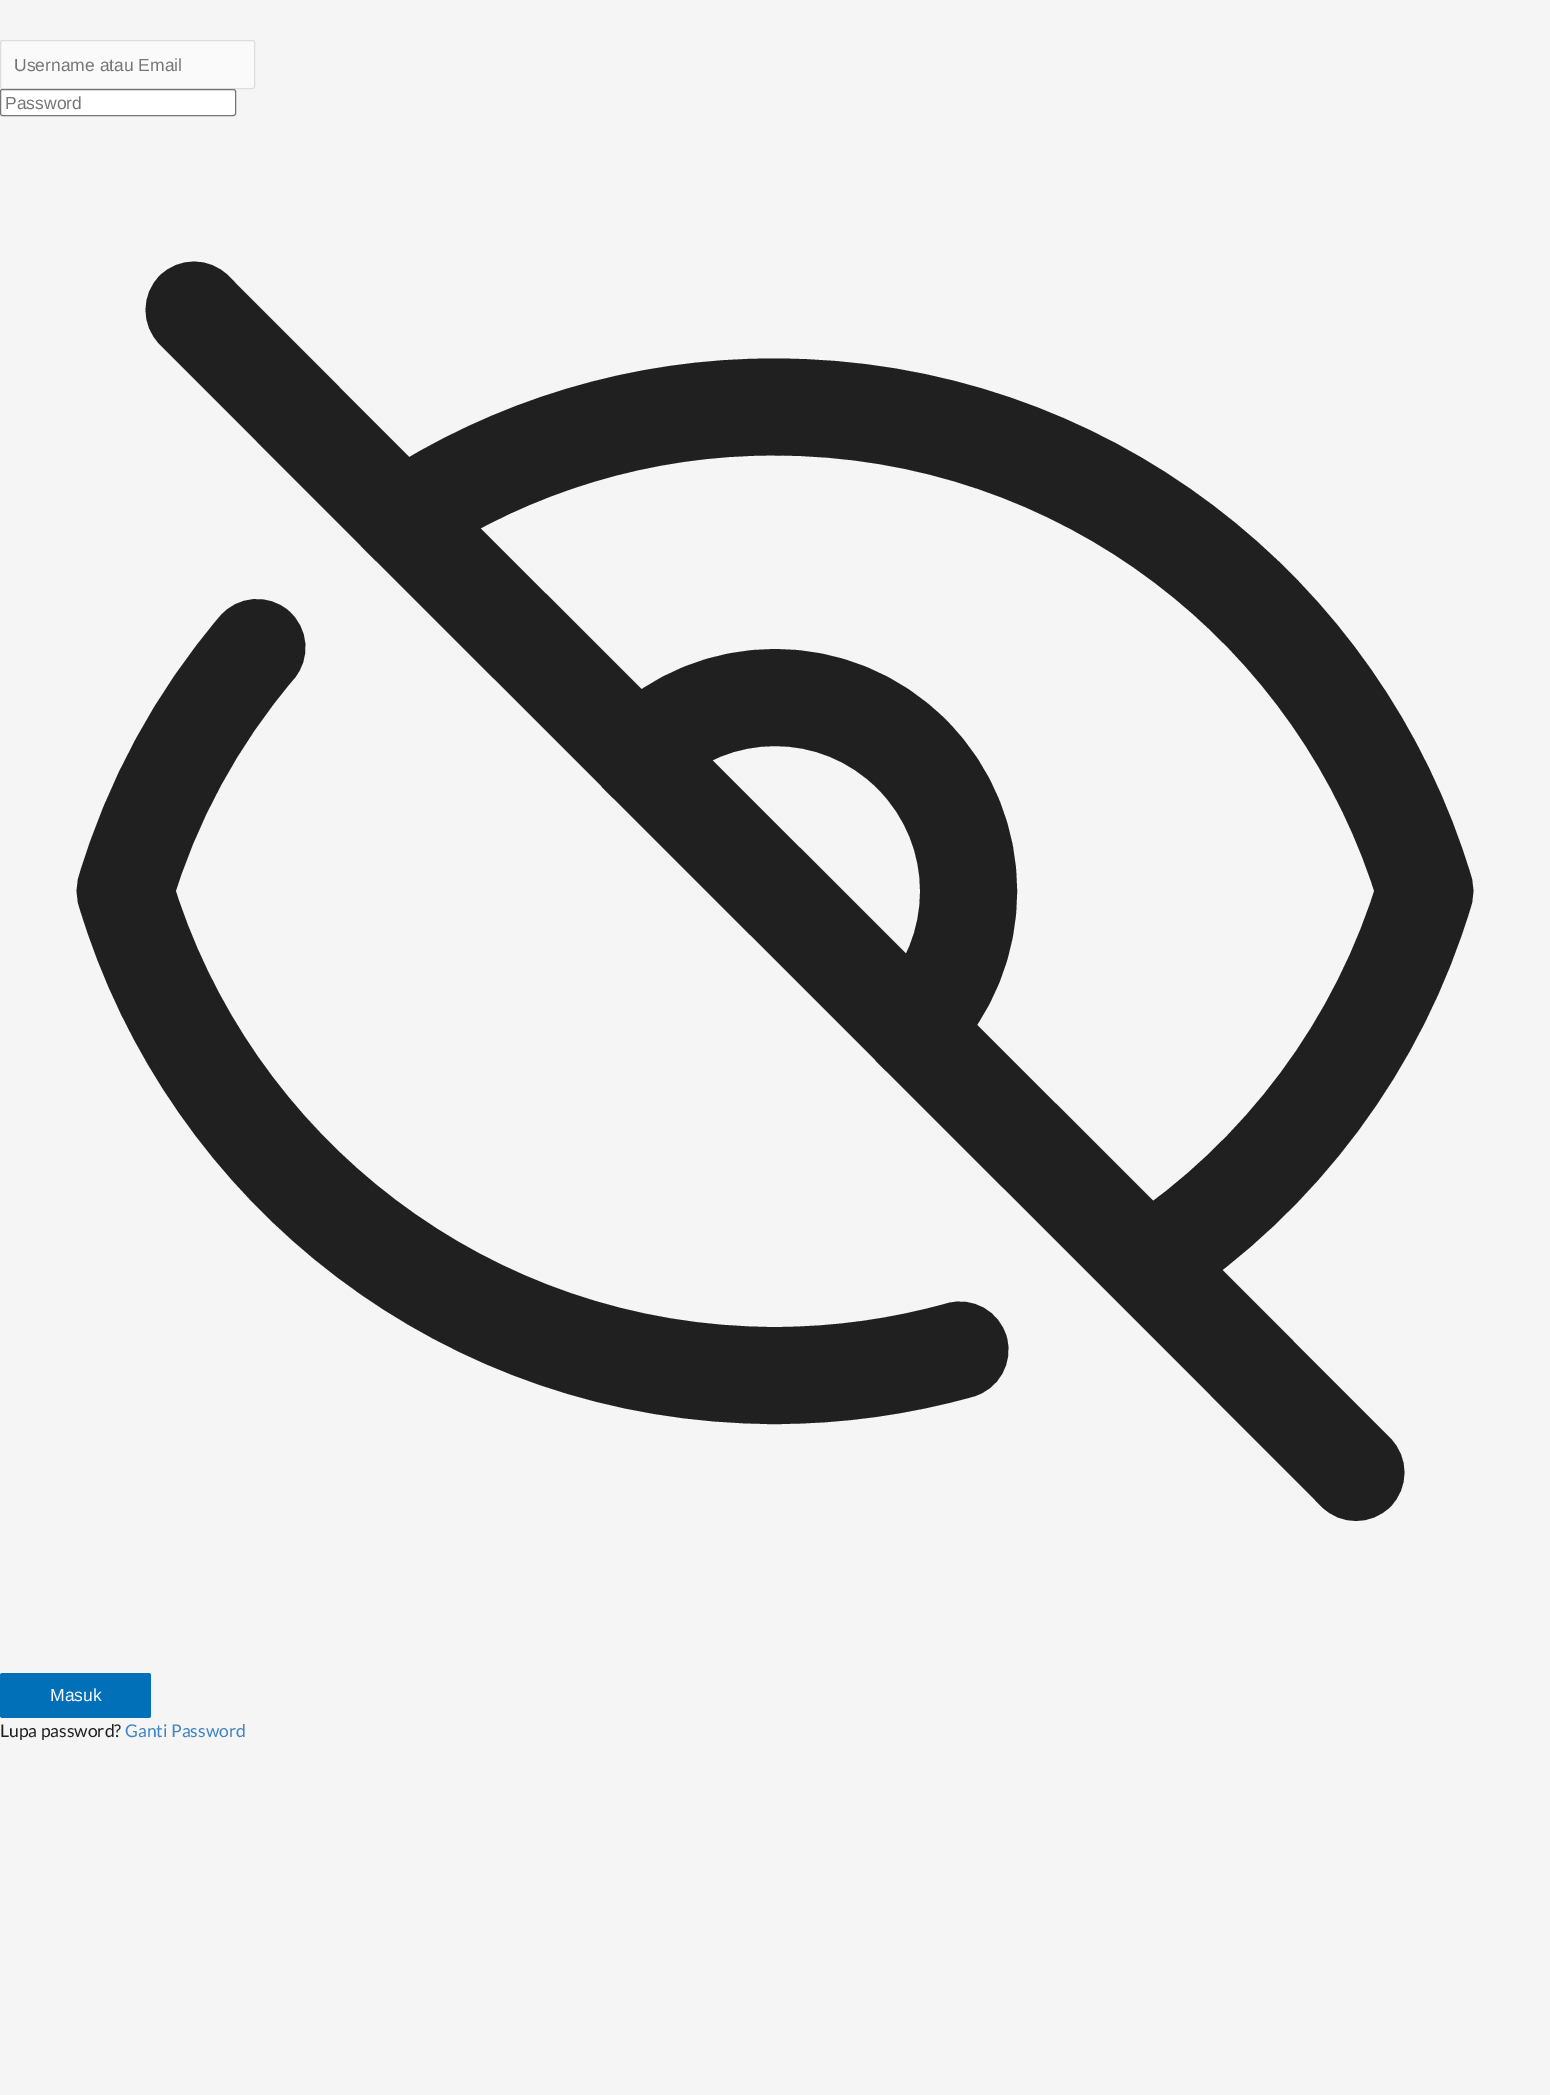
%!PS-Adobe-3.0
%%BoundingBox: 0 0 1550 2095
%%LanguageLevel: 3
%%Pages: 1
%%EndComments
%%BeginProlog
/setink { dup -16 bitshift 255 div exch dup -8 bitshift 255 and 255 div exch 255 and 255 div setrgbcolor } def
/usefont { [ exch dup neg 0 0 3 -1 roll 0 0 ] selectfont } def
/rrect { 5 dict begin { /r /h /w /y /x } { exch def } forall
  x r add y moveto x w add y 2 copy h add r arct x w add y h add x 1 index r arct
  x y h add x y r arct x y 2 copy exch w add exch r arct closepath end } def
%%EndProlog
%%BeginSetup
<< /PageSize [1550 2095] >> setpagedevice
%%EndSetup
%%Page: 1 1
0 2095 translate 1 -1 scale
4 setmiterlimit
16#F5F5F5 setink
0 0 1550 2095 rectfill
16#FAFAFA setink
0.5 40.5 254 48 2 rrect gsave fill grestore
16#DDDDDD setink
stroke
/LiberationSans-Regular 17.5 usefont
16#757575 setink
14 71 moveto (Username atau Email) show
16#FFFFFF setink
0.5 89.5 235 26 2 rrect gsave fill grestore
16#767676 setink
stroke
16#757575 setink
5 109 moveto (Password) show
16#202020 setink
96.9 setlinewidth
1 setlinecap
1 setlinejoin
257 647.5 moveto 196.5 718.5 151.5 801.5 125 891 curveto 208.5 1171.5 468 1375.5 775 1375.5 curveto 839 1375.5 901 1366.5 960 1350 curveto 402 518.5 moveto 513 445.5 642.5 406.5 775 407 curveto 1082 407 1341.5 611 1425 891 curveto 1379.5 1044 1281 1176 1148 1264 curveto 402 518.5 moveto 194 310 lineto 402 518.5 moveto 638 754 lineto 1148 1264 moveto 1356 1472.5 lineto 1148 1264 moveto 912 1028.5 lineto 912 1028.5 moveto 987.5 952.5 987.5 830 912 754.5 curveto 836.5 678.5 713.5 678.5 638 754.5 curveto 912 1028 moveto 638 754.5 lineto stroke
16#0170B9 setink
0 1673 151 45 2.5 rrect fill
16#FFFFFF setink
50 1701 moveto (Masuk) show
/Lato-Regular 17.5 usefont
16#202020 setink
0 1737 moveto (Lupa password?) show
16#4183C4 setink
125 1737 moveto (Ganti Password) show
showpage
%%EOF
